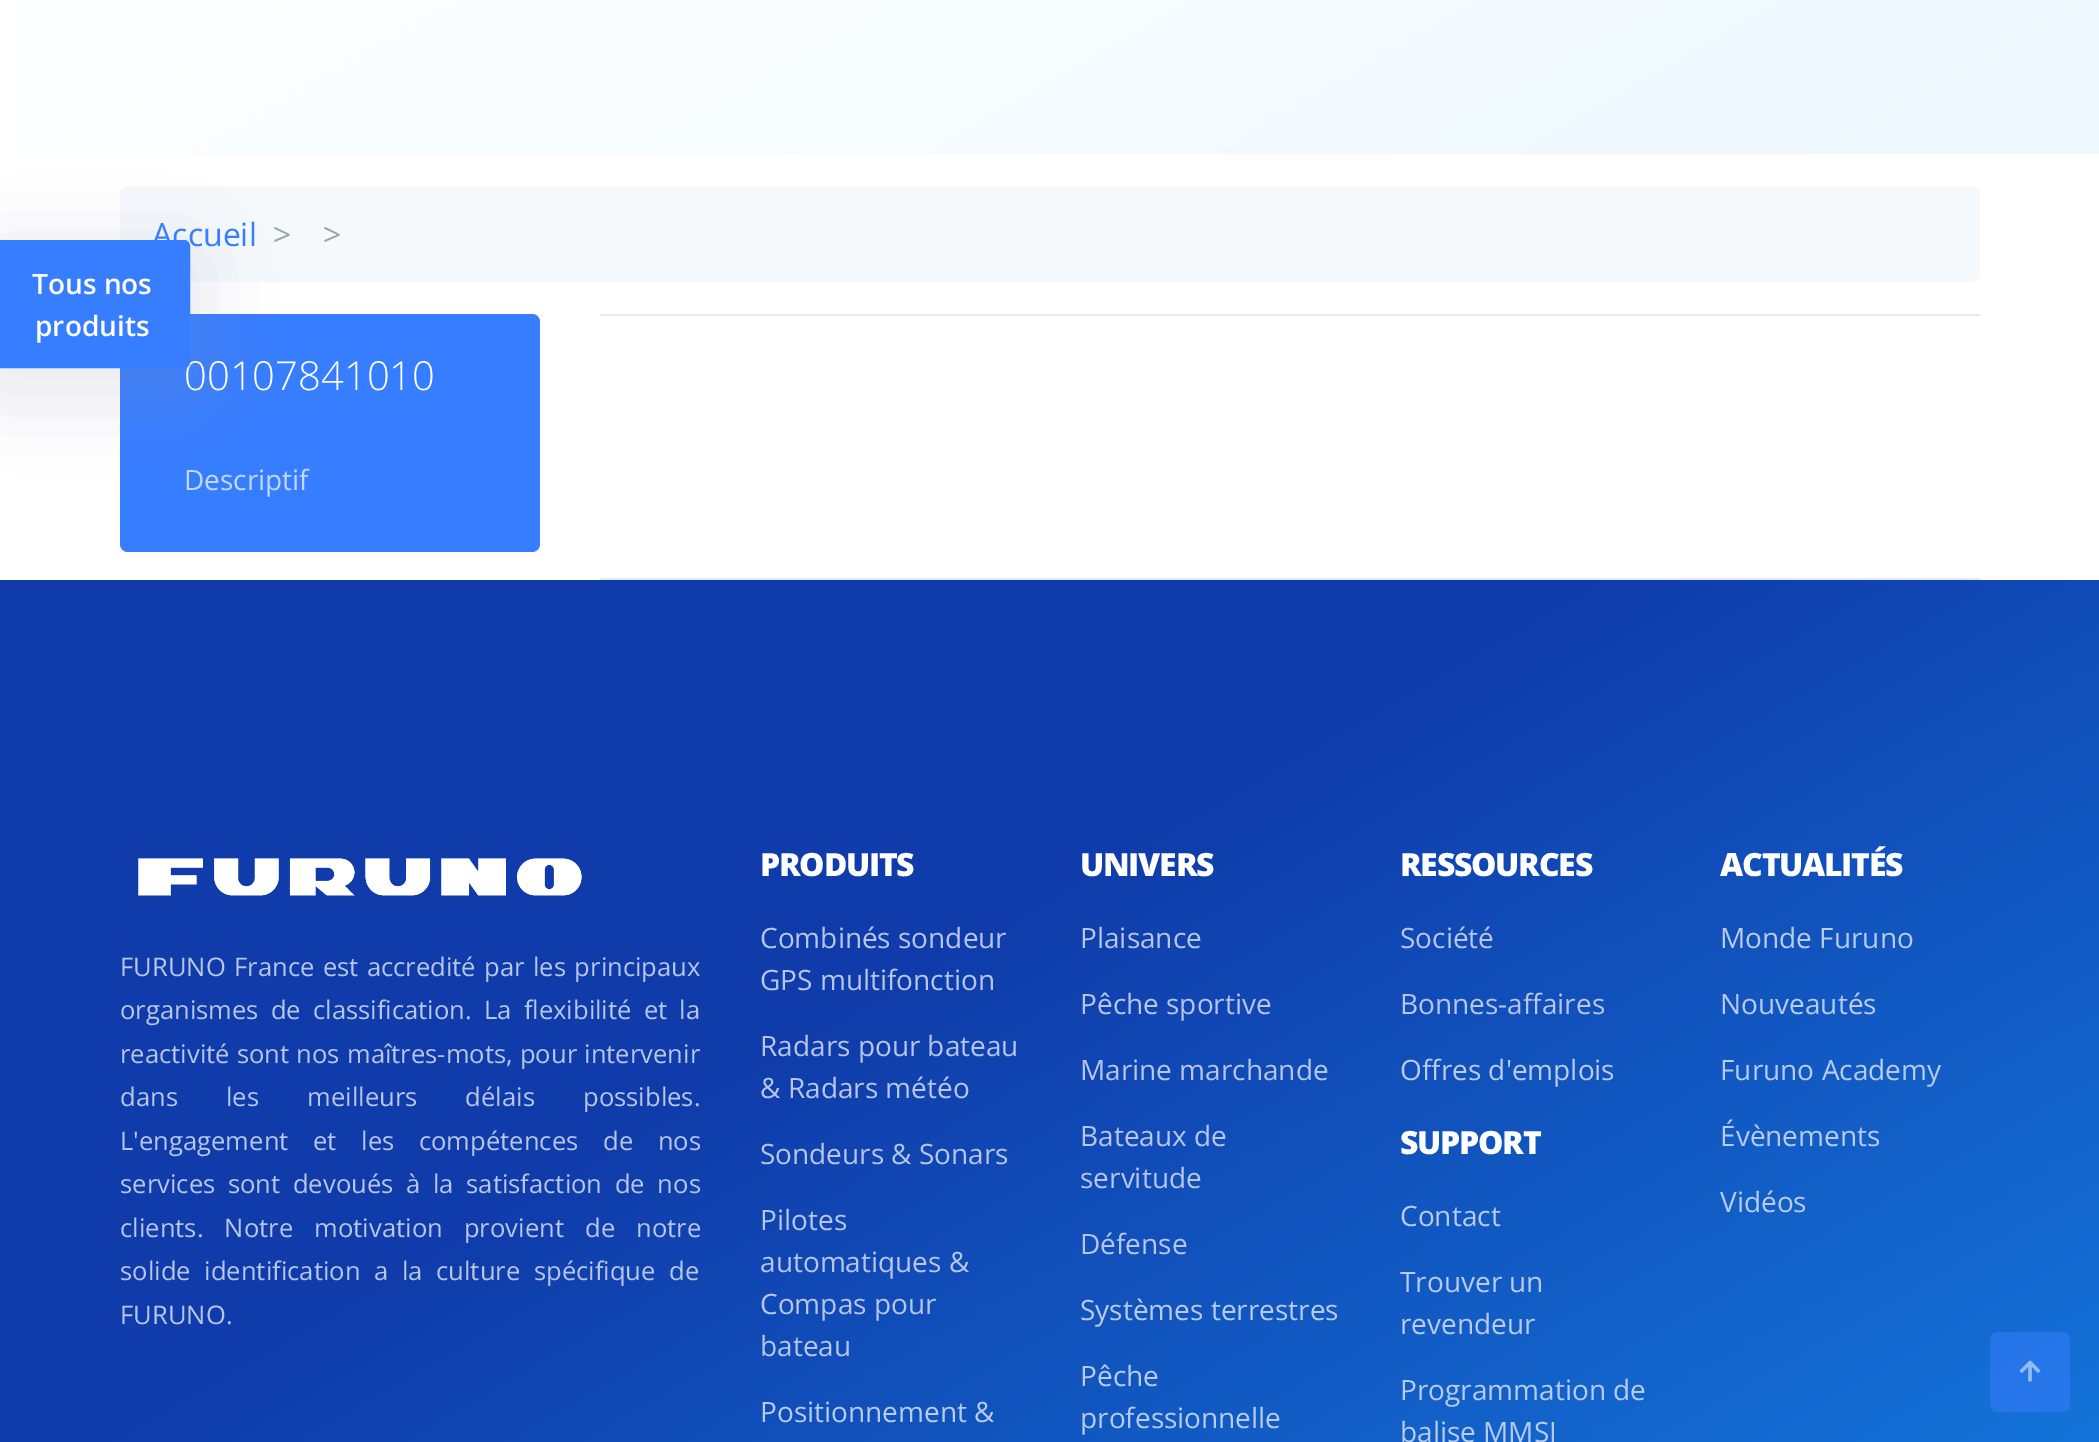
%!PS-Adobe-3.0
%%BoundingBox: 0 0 2099 1442
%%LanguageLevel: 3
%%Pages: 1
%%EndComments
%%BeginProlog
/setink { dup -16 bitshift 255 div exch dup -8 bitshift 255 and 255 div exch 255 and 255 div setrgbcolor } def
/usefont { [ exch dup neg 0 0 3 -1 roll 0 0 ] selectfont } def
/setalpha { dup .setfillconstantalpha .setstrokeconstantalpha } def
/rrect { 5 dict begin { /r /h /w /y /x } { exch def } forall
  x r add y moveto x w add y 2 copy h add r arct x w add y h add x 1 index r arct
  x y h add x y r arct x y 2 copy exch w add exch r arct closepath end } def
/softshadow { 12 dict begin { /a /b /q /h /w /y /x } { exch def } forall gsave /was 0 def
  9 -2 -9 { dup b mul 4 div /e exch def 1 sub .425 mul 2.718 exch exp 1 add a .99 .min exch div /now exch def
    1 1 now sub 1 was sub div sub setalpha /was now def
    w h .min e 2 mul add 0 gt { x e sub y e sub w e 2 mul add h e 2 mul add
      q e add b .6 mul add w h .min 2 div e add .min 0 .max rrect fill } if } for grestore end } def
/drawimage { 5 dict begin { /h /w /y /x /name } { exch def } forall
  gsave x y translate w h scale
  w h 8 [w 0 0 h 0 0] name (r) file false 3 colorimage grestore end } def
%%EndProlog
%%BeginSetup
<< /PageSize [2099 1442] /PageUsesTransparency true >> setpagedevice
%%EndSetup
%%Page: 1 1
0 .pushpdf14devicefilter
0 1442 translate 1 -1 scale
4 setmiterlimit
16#FFFFFF setink
0 0 2099 1442 rectfill
gsave 13 0 moveto 2099 0 lineto 2099 154 lineto 13 154 lineto closepath clip newpath
<< /ShadingType 2 /ColorSpace /DeviceRGB /Coords [545 -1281 1555 469] /Extend [true true] /Function << /FunctionType 3 /Domain [0 1] /Functions [<< /FunctionType 2 /Domain [0 1] /C0 [1 1 1] /C1 [1 1 1] /N 1 >> << /FunctionType 2 /Domain [0 1] /C0 [1 1 1] /C1 [0.929 0.976 1] /N 1 >>] /Bounds [0.4] /Encode [0 1 0 1] >> >> shfill grestore
16#F6F9FC setink
120 186 1860 96 8 rrect fill
16#377DFF setink
120 314 420 238 8 rrect fill
16#8C98A4 setink
-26 240 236 168 26 40 0.18 softshadow
/OpenSans-Light 40 usefont
16#FFFFFF setink
184 390 moveto (00107841010) show
16#377DFF setink
-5 241 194 126 5 rrect gsave fill grestore
2 setlinewidth
stroke
/OpenSans-SemiBold 28 usefont
16#FFFFFF setink
32 294 moveto (Tous nos) show
35 336 moveto (produits) show
/OpenSans-Regular 32 usefont
16#377DFF setink
152 246 moveto (Accueil) show
16#97A4AF setink
273 246 moveto (>) show
323 246 moveto (>) show
/OpenSans-Regular 28 usefont
16#C3D8FF setink
184 490 moveto (Descriptif) show
16#E7EAF3 setink
600 314 1380 2 rectfill
600 578 1380 2 rectfill
gsave 0 580 moveto 2099 580 lineto 2099 1442 lineto 0 1442 lineto closepath clip newpath
<< /ShadingType 2 /ColorSpace /DeviceRGB /Coords [400 349 1700 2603] /Extend [true true] /Function << /FunctionType 3 /Domain [0 1] /Functions [<< /FunctionType 2 /Domain [0 1] /C0 [0.059 0.235 0.667] /C1 [0.059 0.235 0.667] /N 1 >> << /FunctionType 2 /Domain [0 1] /C0 [0.059 0.235 0.667] /C1 [0.098 0.627 1] /N 1 >>] /Bounds [0.3] /Encode [0 1 0 1] >> >> shfill grestore
(img1.raw) 138 858 444 38 drawimage
/OpenSans-Regular 25.6 usefont
16#B7C5E6 setink
120 976 moveto 1.75 0 32 (FURUNO France est accredité par les principaux) widthshow
120 1019 moveto 5.5 0 32 (organismes de classification. La flexibilité et la) widthshow
120 1063 moveto 0.5 0 32 (reactivité sont nos maîtres-mots, pour intervenir) widthshow
120 1106 moveto 41.5 0 32 (dans les meilleurs délais possibles.) widthshow
120 1150 moveto 18 0 32 (L'engagement et les compétences de nos) widthshow
120 1193 moveto 6 0 32 (services sont devoués à la satisfaction de nos) widthshow
120 1237 moveto 14.5 0 32 (clients. Notre motivation provient de notre) widthshow
120 1280 moveto 7 0 32 (solide identification a la culture spécifique de) widthshow
120 1324 moveto (FURUNO.) show
/OpenSans-ExtraBold 32 usefont
16#FFFFFF setink
760 876 moveto -1.25 0 (PRODUITS) ashow
/OpenSans-Regular 28 usefont
16#B7C5E6 setink
[
    [(Combinés sondeur) 760 948]
    [(GPS multifonction) 760 990]
    [(Radars pour bateau) 760 1056]
    [(& Radars météo) 760 1098]
    [(Sondeurs & Sonars) 760 1164]
    [(Pilotes) 760 1230]
    [(automatiques &) 760 1272]
    [(Compas pour) 760 1314]
    [(bateau) 760 1356]
] { aload pop moveto show } forall
16#B8CBEB setink
760 1422 moveto (Positionnement &) show
/OpenSans-ExtraBold 32 usefont
16#FFFFFF setink
1080 876 moveto -1.25 0 (UNIVERS) ashow
/OpenSans-Regular 28 usefont
16#B7C5E6 setink
[
    [(Plaisance) 1080 948]
    [(Pêche sportive) 1080 1014]
    [(Marine marchande) 1080 1080]
    [(Bateaux de) 1080 1146]
    [(servitude) 1080 1188]
    [(Défense) 1080 1254]
] { aload pop moveto show } forall
16#B8CBEB setink
[
    [(Systèmes terrestres) 1080 1320]
    [(Pêche) 1080 1386]
    [(professionnelle) 1080 1428]
] { aload pop moveto show } forall
/OpenSans-ExtraBold 32 usefont
16#FFFFFF setink
1400 876 moveto -1.25 0 (RESSOURCES) ashow
/OpenSans-Regular 28 usefont
16#B7C5E6 setink
1400 948 moveto (Société) show
1400 1014 moveto (Bonnes-affaires) show
16#B8CBEB setink
1400 1080 moveto (Offres d'emplois) show
/OpenSans-ExtraBold 32 usefont
16#FFFFFF setink
1400 1154 moveto -1.25 0 (SUPPORT) ashow
/OpenSans-Regular 28 usefont
16#B8CBEB setink
[
    [(Contact) 1400 1226]
    [(Trouver un) 1400 1292]
    [(revendeur) 1400 1334]
    [(Programmation de) 1400 1400]
    [(balise MMSI) 1400 1442]
] { aload pop moveto show } forall
/OpenSans-ExtraBold 32 usefont
16#FFFFFF setink
1720 876 moveto -1.25 0 (ACTUALITÉS) ashow
/OpenSans-Regular 28 usefont
16#B8CBEB setink
[
    [(Monde Furuno) 1720 948]
    [(Nouveautés) 1720 1014]
    [(Furuno Academy) 1720 1080]
    [(Évènements) 1720 1146]
    [(Vidéos) 1720 1212]
] { aload pop moveto show } forall
0.5 setalpha
16#377DFF setink
1990 1332 80 80 8 rrect fill
1 setalpha
(img2.raw) 2019 1360 22 22 drawimage
.poppdf14devicefilter showpage
%%EOF
